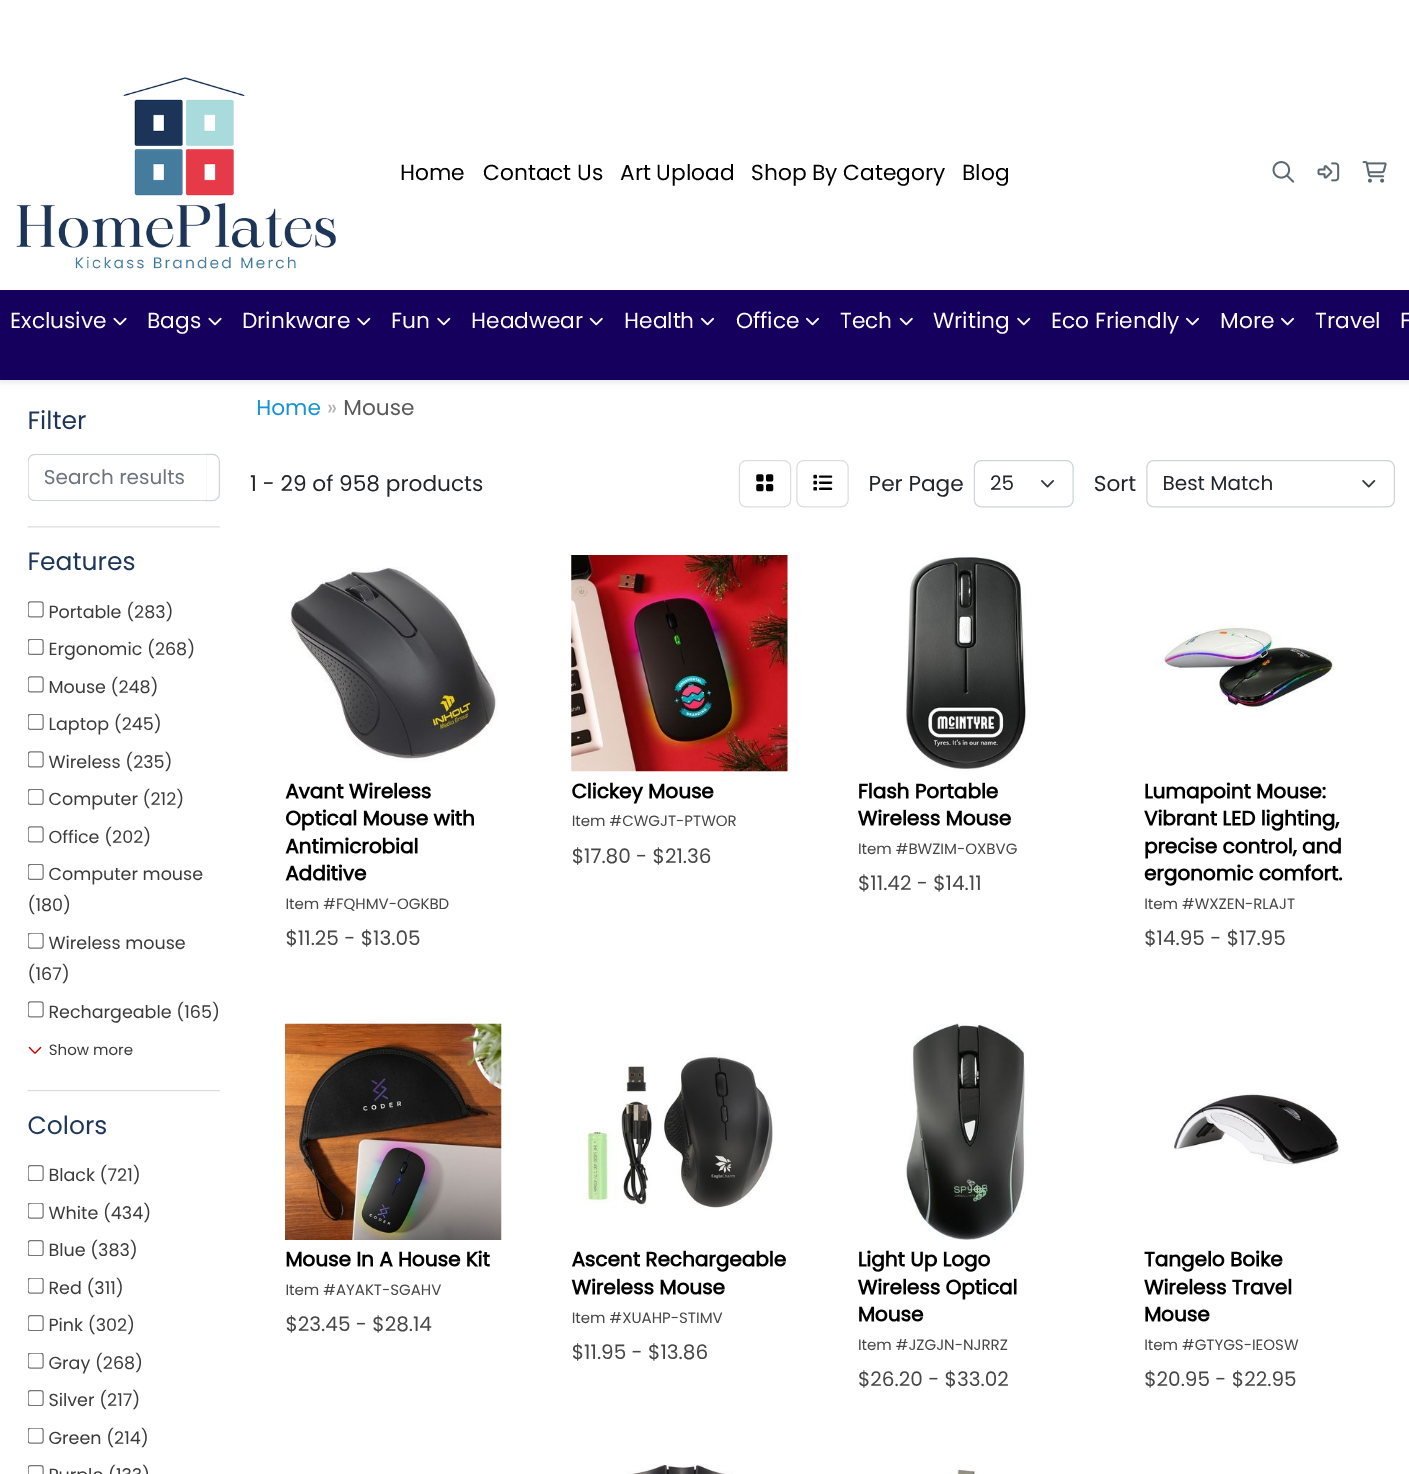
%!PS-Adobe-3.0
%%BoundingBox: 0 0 1409 1474
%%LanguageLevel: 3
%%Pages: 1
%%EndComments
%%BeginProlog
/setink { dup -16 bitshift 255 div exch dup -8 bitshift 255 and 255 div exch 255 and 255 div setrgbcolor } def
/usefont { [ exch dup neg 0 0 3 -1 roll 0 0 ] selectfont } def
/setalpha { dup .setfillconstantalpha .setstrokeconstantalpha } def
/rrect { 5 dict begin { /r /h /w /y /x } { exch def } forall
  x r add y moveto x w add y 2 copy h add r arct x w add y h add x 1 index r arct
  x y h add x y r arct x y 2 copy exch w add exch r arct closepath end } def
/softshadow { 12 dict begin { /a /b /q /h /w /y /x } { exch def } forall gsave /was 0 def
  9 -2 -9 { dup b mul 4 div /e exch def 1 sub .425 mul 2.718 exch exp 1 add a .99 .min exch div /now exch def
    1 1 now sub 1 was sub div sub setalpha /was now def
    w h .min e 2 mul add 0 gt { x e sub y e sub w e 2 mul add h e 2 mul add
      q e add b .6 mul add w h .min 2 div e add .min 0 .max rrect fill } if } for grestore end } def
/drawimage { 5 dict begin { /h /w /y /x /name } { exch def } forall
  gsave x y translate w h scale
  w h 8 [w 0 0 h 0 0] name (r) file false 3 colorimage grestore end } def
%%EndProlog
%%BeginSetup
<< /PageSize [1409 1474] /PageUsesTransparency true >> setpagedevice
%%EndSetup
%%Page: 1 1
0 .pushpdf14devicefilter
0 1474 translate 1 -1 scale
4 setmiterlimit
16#FFFFFF setink
0 0 1409 1474 rectfill
(img1.raw) 16 77 320 192 drawimage
/Poppins-Regular 21.75 usefont
16#000000 setink
[
    [(Home) 400 180]
    [(Contact Us) 483 180]
    [(Art Upload) 620 180]
    [(Shop By Category) 751 180]
    [(Blog) 962 180]
] { aload pop moveto show } forall
(img2.raw) 1272 161 23 22 drawimage
(img3.raw) 1317 162 23 20 drawimage
(img4.raw) 1362 161 25 22 drawimage
0 293 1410 90 0 2.5 0.07 softshadow
16#16005D setink
0 290 1409 90 rectfill
16#FFFFFF setink
10 328 moveto (Exclusive) show
(img5.raw) 113 317 14 9 drawimage
147 328 moveto (Bags) show
(img5.raw) 208 317 14 9 drawimage
242 328 moveto (Drinkware) show
(img6.raw) 357 317 14 9 drawimage
391 328 moveto (Fun) show
(img6.raw) 437 317 14 9 drawimage
471 328 moveto (Headwear) show
(img7.raw) 589 317 14 9 drawimage
624 328 moveto (Health) show
(img8.raw) 701 317 13 9 drawimage
736 328 moveto (Office) show
(img8.raw) 806 317 13 9 drawimage
840 328 moveto (Tech) show
(img7.raw) 899 317 14 9 drawimage
933 328 moveto (Writing) show
(img6.raw) 1017 317 14 9 drawimage
1051 328 moveto (Eco Friendly) show
(img8.raw) 1186 317 13 9 drawimage
1220 328 moveto (More) show
(img8.raw) 1281 317 13 9 drawimage
1315 328 moveto (Travel) show
1400 328 moveto (F) show
(img9.raw) 27 400 1368 1074 drawimage
.poppdf14devicefilter showpage
%%EOF
